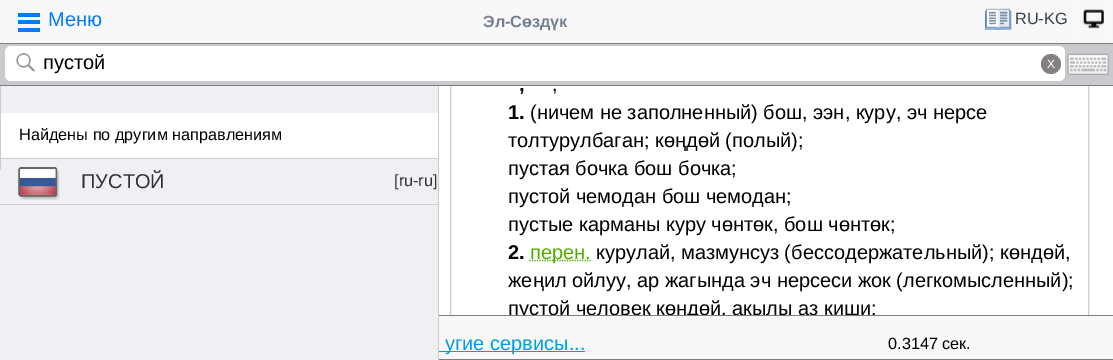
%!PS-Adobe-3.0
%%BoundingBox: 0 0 1113 360
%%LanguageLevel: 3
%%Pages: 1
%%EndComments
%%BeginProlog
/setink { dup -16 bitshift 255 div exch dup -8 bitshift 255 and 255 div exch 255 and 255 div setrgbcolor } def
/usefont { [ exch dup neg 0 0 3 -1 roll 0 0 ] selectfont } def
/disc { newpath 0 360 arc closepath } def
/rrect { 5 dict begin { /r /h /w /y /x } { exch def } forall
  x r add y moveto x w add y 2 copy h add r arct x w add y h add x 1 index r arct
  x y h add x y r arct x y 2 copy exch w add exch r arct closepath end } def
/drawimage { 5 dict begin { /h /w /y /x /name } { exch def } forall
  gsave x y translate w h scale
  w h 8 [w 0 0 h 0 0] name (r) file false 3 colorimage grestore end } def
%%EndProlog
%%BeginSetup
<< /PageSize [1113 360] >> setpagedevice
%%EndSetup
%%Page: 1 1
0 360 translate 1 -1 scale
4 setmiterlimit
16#FFFFFF setink
0 0 1113 360 rectfill
16#CCCCCC setink
450.5 4.5 638 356 rectstroke
[
    [0 0 1113 43 16#F8F8F8]
    [0 43 1113 1 16#7E7E7E]
    [18 13 22 4 16#007BFF]
    [18 20 22 4 16#007BFF]
    [18 28 22 4 16#007BFF]
] { aload pop setink rectfill } forall
/LiberationSans-Regular 20 usefont
48 26 moveto (Меню) show
/LiberationSans-Bold 16.25 usefont
16#708090 setink
483 27 moveto (Эл-Сөздүк) show
16#F0FFFF setink
1073 4 1 31 rectfill
(img1.raw) 985 8 27 23 drawimage
/LiberationSans-Regular 16.25 usefont
16#33404D setink
1015 24 moveto (RU-KG) show
16#F0FFFF setink
1109 4 1 35 rectfill
(img2.raw) 1083 9 21 20 drawimage
16#C9C9CE setink
0 44 1113 41 rectfill
16#7E7E7E setink
0 85 1113 1 rectfill
16#FFFFFF setink
5 46 1060 35 6 rrect fill
(img3.raw) 16 53 19 19 drawimage
/LiberationSans-Regular 20 usefont
16#000000 setink
43 69 moveto (пустой) show
16#848080 setink
1051 64 10 disc fill
/LiberationSans-Regular 12 usefont
16#FFFFFF setink
1047 68 moveto (X) show
(img4.raw) 1067 53 42 22 drawimage
[
    [0 86 438 274 16#EFEFF4]
    [0 158 438 1 16#CCCCCC]
    [0 86 1 84 16#CCCCCC]
    [438 86 1 274 16#CCCCCC]
    [1 113 437 45 16#FFFFFF]
] { aload pop setink rectfill } forall
/LiberationSans-Regular 16.25 usefont
16#000000 setink
19 140 moveto (Найдены по другим направлениям) show
16#CCCCCC setink
0 204 438 1 rectfill
(img5.raw) 18 167 42 33 drawimage
/LiberationSans-Regular 20 usefont
16#333333 setink
81 188 moveto (ПУСТОЙ) show
/LiberationSans-Regular 16.25 usefont
394 186 moveto ([ru-ru]) show
/LiberationSans-Bold 20 usefont
16#000000 setink
519 91 moveto (,) show
/LiberationSans-Regular 20 usefont
552 91 moveto (,) show
/LiberationSans-Bold 20 usefont
508 119 moveto (1.) show
/LiberationSans-Regular 20 usefont
[
    [(\(ничем не заполненный\) бош, ээн, куру, эч нерсе) 530 119]
    [(толтурулбаган; көңдөй \(полый\);) 508 147]
    [(пустая бочка бош бочка;) 508 175]
    [(пустой чемодан бош чемодан;) 508 203]
    [(пустые карманы куру чөнтөк, бош чөнтөк;) 508 231]
] { aload pop moveto show } forall
/LiberationSans-Bold 20 usefont
508 259 moveto (2.) show
16#52AB00 setink
1.2 setlinewidth
[1.25 1.25] 0 setdash
529.5 260.5 moveto 590.5 260.5 lineto stroke
/LiberationSans-Regular 20 usefont
530 259 moveto (перен.) show
16#000000 setink
[
    [(курулай, мазмунсуз \(бессодержательный\); көндөй,) 596 259]
    [(жеңил ойлуу, ар жагында эч нерсеси жок \(легкомысленный\);) 508 287]
    [(пустой человек көндөй, акылы аз киши;) 508 315]
] { aload pop moveto show } forall
[
    [439 316 674 43 16#F8F8F8]
    [439 315 674 1 16#7E7E7E]
    [439 359 674 1 16#7E7E7E]
    [439 351 146 1 16#039BE5]
] { aload pop setink rectfill } forall
445 350 moveto (угие сервисы...) show
/LiberationSans-Regular 16.25 usefont
16#000000 setink
888 349 moveto (0.3147 сек.) show
showpage
%%EOF
